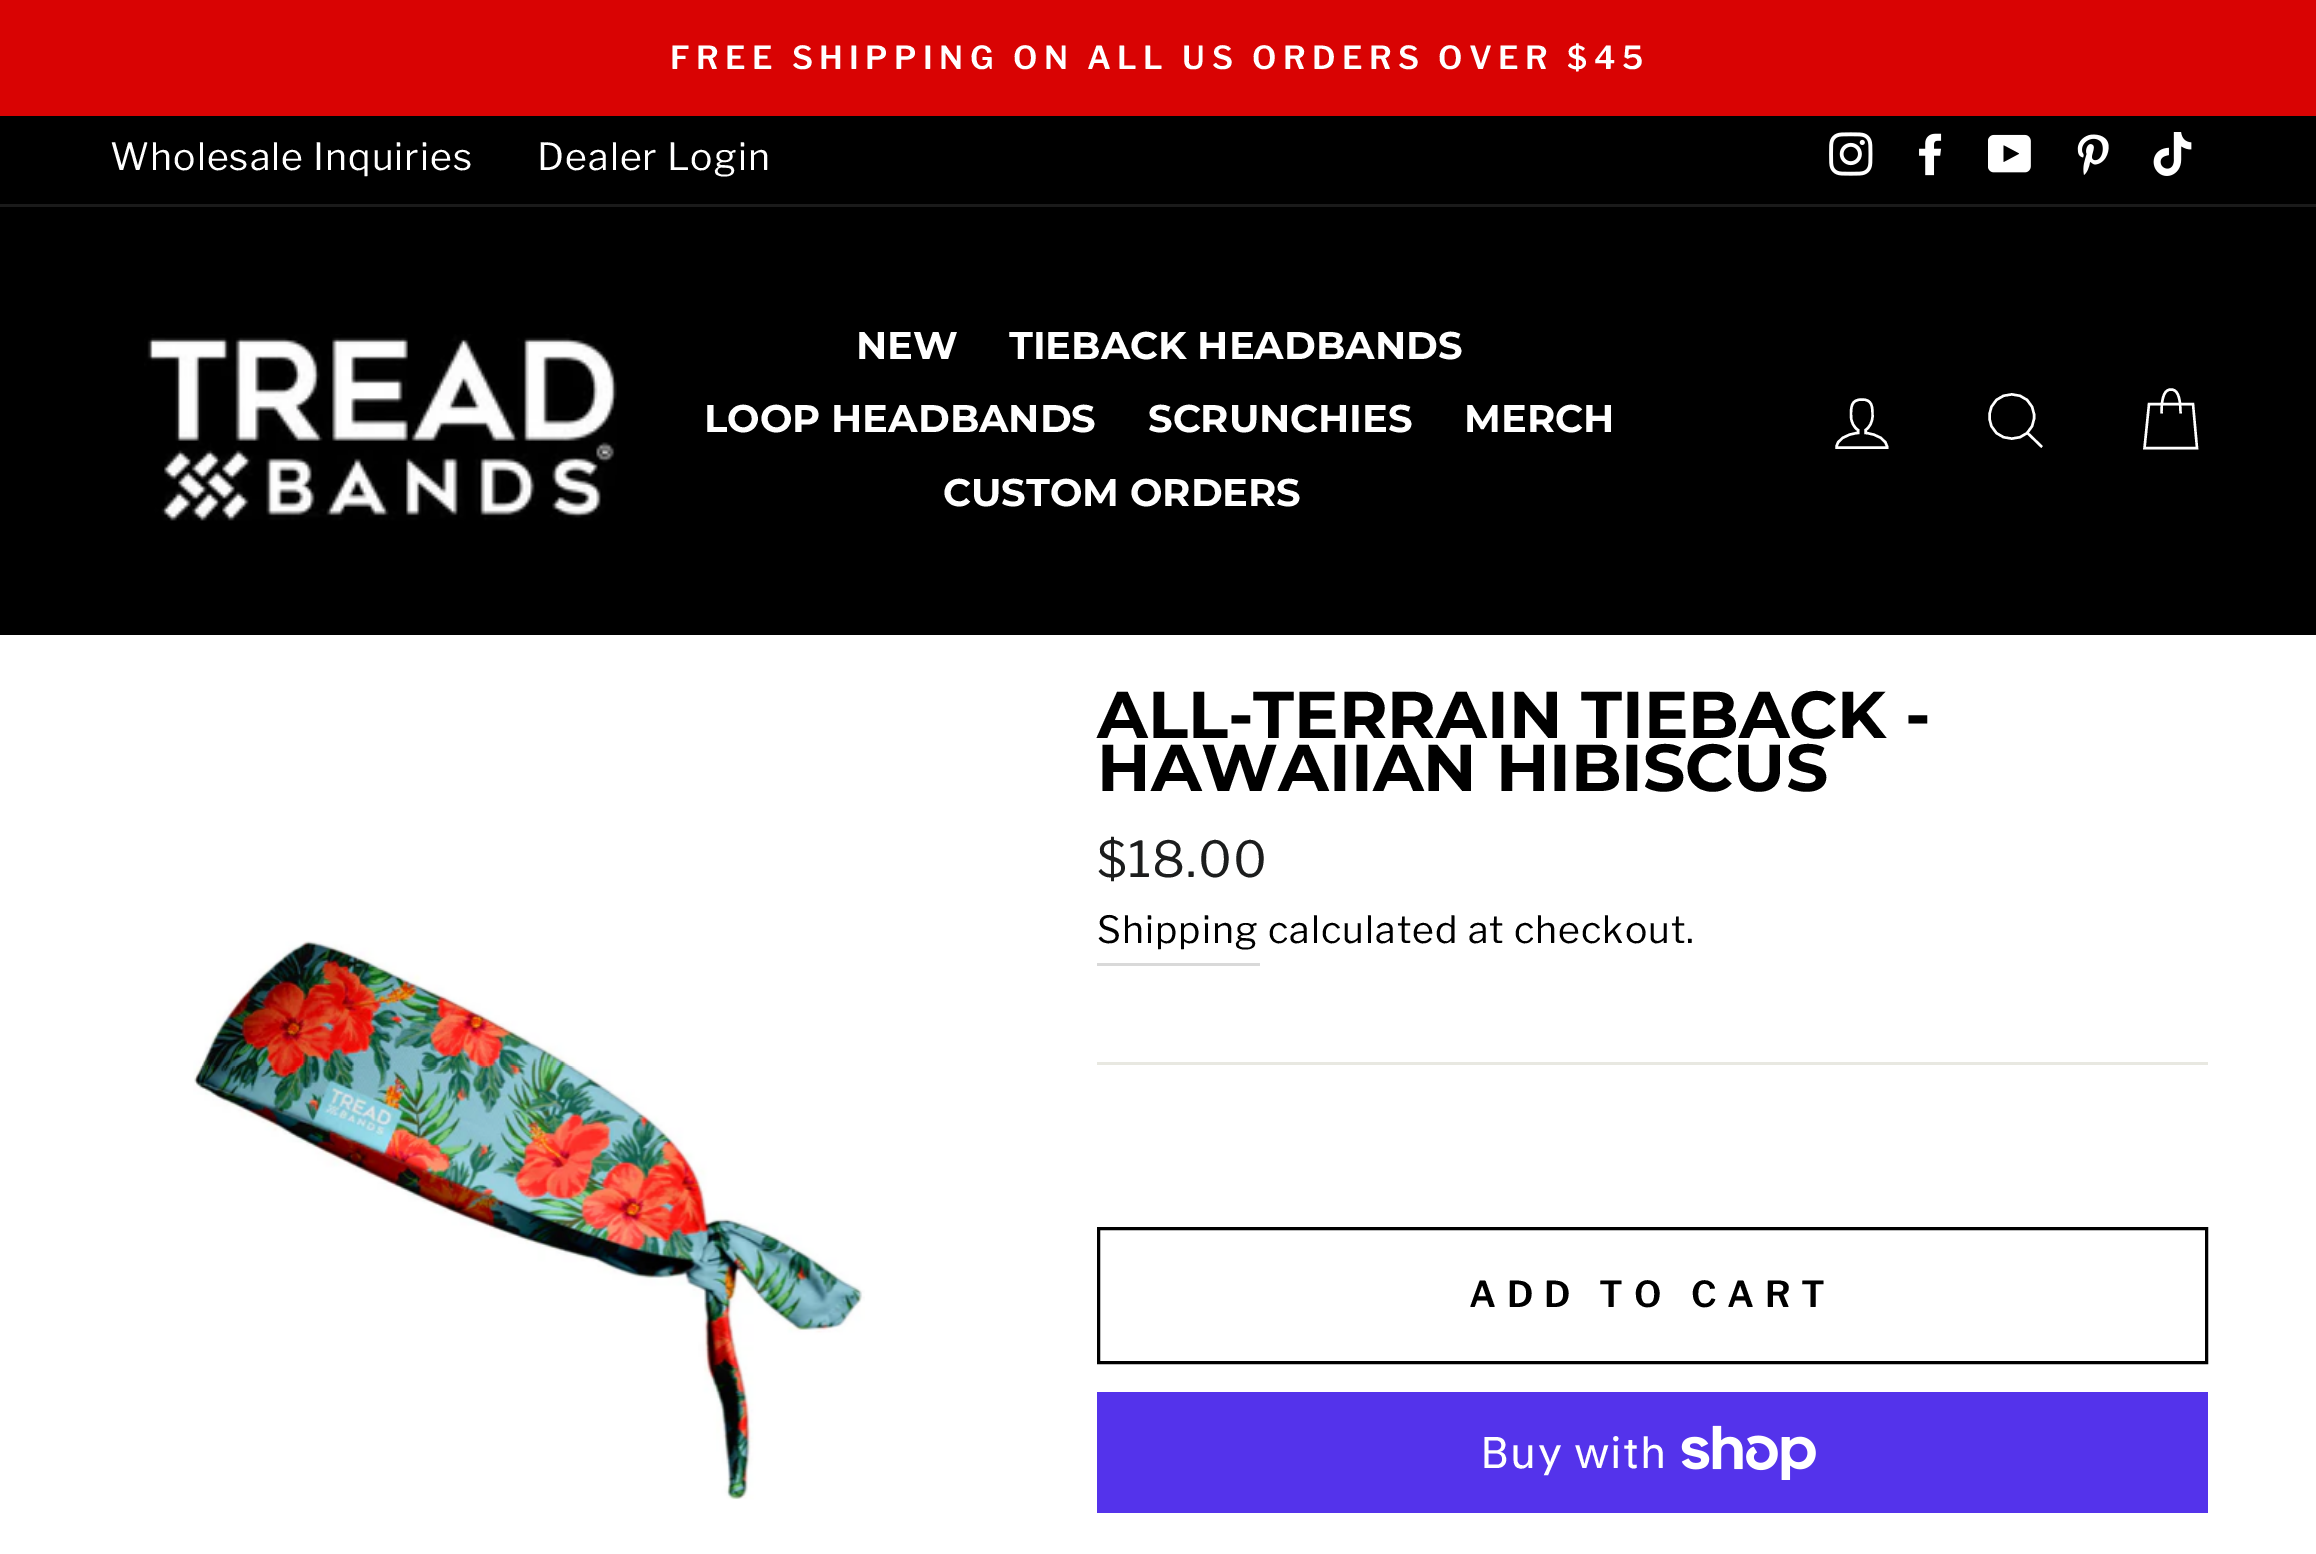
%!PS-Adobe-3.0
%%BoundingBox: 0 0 2316 1554
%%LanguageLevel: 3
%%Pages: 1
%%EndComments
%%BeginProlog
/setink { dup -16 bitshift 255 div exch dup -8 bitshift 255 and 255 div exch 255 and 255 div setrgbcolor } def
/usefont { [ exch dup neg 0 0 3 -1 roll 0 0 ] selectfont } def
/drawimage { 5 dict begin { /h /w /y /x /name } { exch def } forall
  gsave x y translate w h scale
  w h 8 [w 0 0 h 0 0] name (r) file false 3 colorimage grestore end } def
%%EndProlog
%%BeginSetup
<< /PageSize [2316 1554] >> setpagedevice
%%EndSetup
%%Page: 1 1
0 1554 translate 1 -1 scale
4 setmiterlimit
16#FFFFFF setink
0 0 2316 1554 rectfill
16#D90303 setink
0 0 2316 116 rectfill
/LibreFranklin-SemiBold 31.8 usefont
16#FFFFFF setink
670 69 moveto 6.35 0 (FREE SHIPPING ON ALL US ORDERS OVER $45) ashow
16#000000 setink
0 116 2316 88 rectfill
/LibreFranklin-Regular 37.4 usefont
16#FFFFFF setink
110 170 moveto 1.1 0 (Wholesale Inquiries) ashow
537 170 moveto 1.1 0 (Dealer Login) ashow
(img1.raw) 1829 132 44 44 drawimage
(img2.raw) 1919 133 23 43 drawimage
(img3.raw) 1988 134 43 39 drawimage
(img4.raw) 2077 134 32 41 drawimage
(img5.raw) 2153 132 39 44 drawimage
16#000000 setink
0 207 2316 428 rectfill
16#1A1A1A setink
0 204 2316 3 rectfill
(img6.raw) 144 334 473 187 drawimage
/Montserrat-Bold 38.5 usefont
16#FFFFFF setink
[
    [(NEW) 856 359]
    [(TIEBACK HEADBANDS) 1009 359]
    [(LOOP HEADBANDS) 704 432]
    [(SCRUNCHIES) 1148 432]
    [(MERCH) 1464 432]
    [(CUSTOM ORDERS) 943 506]
] { aload pop moveto show } forall
2.4 setlinewidth
1865.5 433 moveto 1865.5 430 lineto 1869.5 427.5 1872.5 422 1872.5 416 curveto 1872.5 407 1872.5 399.5 1862 399.5 curveto 1851 399.5 1851 407 1851 416 curveto 1851 422 1854 427.5 1858 430 curveto 1858 433 lineto 1846 434 1836.5 440 1836.5 447.5 curveto 1887 447.5 lineto 1887 440 1877.5 434 1865.5 433 curveto closepath stroke
2034 416.5 moveto 2034 446 1989.5 446 1989.5 416.5 curveto 1989.5 387 2034 387 2034 416.5 curveto closepath 2042 447 moveto 2027.5 433 lineto stroke
2161.5 413.5 moveto 2161.5 394.5 2165.5 389.5 2171 389.5 curveto 2176.5 389.5 2180.5 394.5 2180.5 413.5 curveto 2149 404 moveto 2193 404 lineto 2197 448 lineto 2144.5 448 lineto closepath stroke
(img7.raw) 193 940 672 560 drawimage
/Montserrat-Bold 66.25 usefont
16#000000 setink
1097 738 moveto (ALL-TERRAIN TIEBACK -) show
1097 791 moveto (HAWAIIAN HIBISCUS) show
/LibreFranklin-Regular 49.5 usefont
16#1C1D1D setink
1097 877 moveto 1.1 0 ($18.00) ashow
16#D9D9D9 setink
1097 963 163 3 rectfill
/LibreFranklin-Regular 37.4 usefont
16#000000 setink
1097 943 moveto 1.1 0 (Shipping) ashow
1268 943 moveto 1.1 0 (calculated at checkout.) ashow
16#E8E8E1 setink
1097 1062 1111 3 rectfill
16#000000 setink
3 setlinewidth
1098.5 1228.5 1108 134 rectstroke
/LibreFranklin-SemiBold 35.75 usefont
1469 1307 moveto 10.75 0 (ADD TO CART) ashow
16#5433EB setink
1097 1392 1111 121 rectfill
/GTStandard-Regular 44 usefont
16#FFFFFF setink
1480 1468 moveto 1.1 0 (Buy with) ashow
(img8.raw) 1681 1425 135 55 drawimage
showpage
%%EOF
